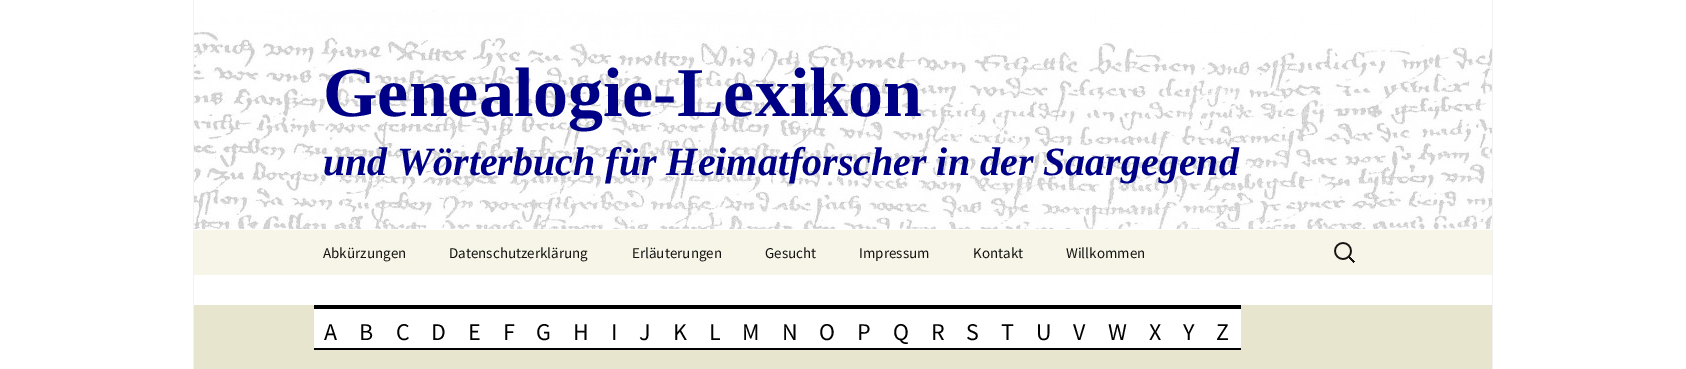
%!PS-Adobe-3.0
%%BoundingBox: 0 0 1686 369
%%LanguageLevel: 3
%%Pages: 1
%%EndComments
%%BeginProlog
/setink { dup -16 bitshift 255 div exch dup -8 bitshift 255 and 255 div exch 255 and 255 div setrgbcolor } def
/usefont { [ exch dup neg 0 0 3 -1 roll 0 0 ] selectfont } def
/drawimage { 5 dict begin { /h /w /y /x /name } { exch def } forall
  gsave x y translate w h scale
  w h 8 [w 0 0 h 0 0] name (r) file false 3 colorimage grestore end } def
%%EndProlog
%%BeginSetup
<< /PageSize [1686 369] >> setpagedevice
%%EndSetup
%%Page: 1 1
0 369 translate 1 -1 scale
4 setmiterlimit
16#FFFFFF setink
0 0 1686 369 rectfill
16#F2F2F2 setink
1492 0 1 369 rectfill
193 0 1 369 rectfill
(img1.raw) 194 10 1298 219 drawimage
/LiberationSerif-Bold 70 usefont
16#000087 setink
323 116 moveto (Genealogie-Lexikon) show
/LiberationSerif-BoldItalic 40 usefont
323 175 moveto (und Wörterbuch für Heimatforscher in der Saargegend) show
16#F7F5E7 setink
194 230 1298 45 rectfill
/SourceSansPro-Regular 15 usefont
16#141412 setink
[
    [(Abkürzungen) 323 258]
    [(Datenschutzerklärung) 449 258]
    [(Erläuterungen) 632 258]
    [(Gesucht) 765 258]
    [(Impressum) 859 258]
    [(Kontakt) 973 258]
    [(Willkommen) 1066 258]
] { aload pop moveto show } forall
(img2.raw) 1334 242 21 21 drawimage
[
    [194 305 1298 64 16#E8E5CE]
    [314 309 927 39 16#FFFFFF]
    [314 305 927 4 16#000000]
    [314 348 927 2 16#000000]
] { aload pop setink rectfill } forall
/SourceSansPro-Regular 24 usefont
324 340 moveto 1 0 (A) ashow
359 340 moveto 1 0 (B) ashow
396 340 moveto 1 0 (C) ashow
431 340 moveto 1 0 (D) ashow
468 340 moveto 1 0 (E) ashow
503 340 moveto 1 0 (F) ashow
536 340 moveto 1 0 (G) ashow
573 340 moveto 1 0 (H) ashow
611 340 moveto 1 0 (I) ashow
639 340 moveto 1 0 (J) ashow
673 340 moveto 1 0 (K) ashow
709 340 moveto 1 0 (L) ashow
742 340 moveto 1 0 (M) ashow
782 340 moveto 1 0 (N) ashow
819 340 moveto 1 0 (O) ashow
857 340 moveto 1 0 (P) ashow
893 340 moveto 1 0 (Q) ashow
931 340 moveto 1 0 (R) ashow
966 340 moveto 1 0 (S) ashow
1001 340 moveto 1 0 (T) ashow
1036 340 moveto 1 0 (U) ashow
1073 340 moveto 1 0 (V) ashow
1108 340 moveto 1 0 (W) ashow
1149 340 moveto 1 0 (X) ashow
1183 340 moveto 1 0 (Y) ashow
1216 340 moveto 1 0 (Z) ashow
showpage
%%EOF
